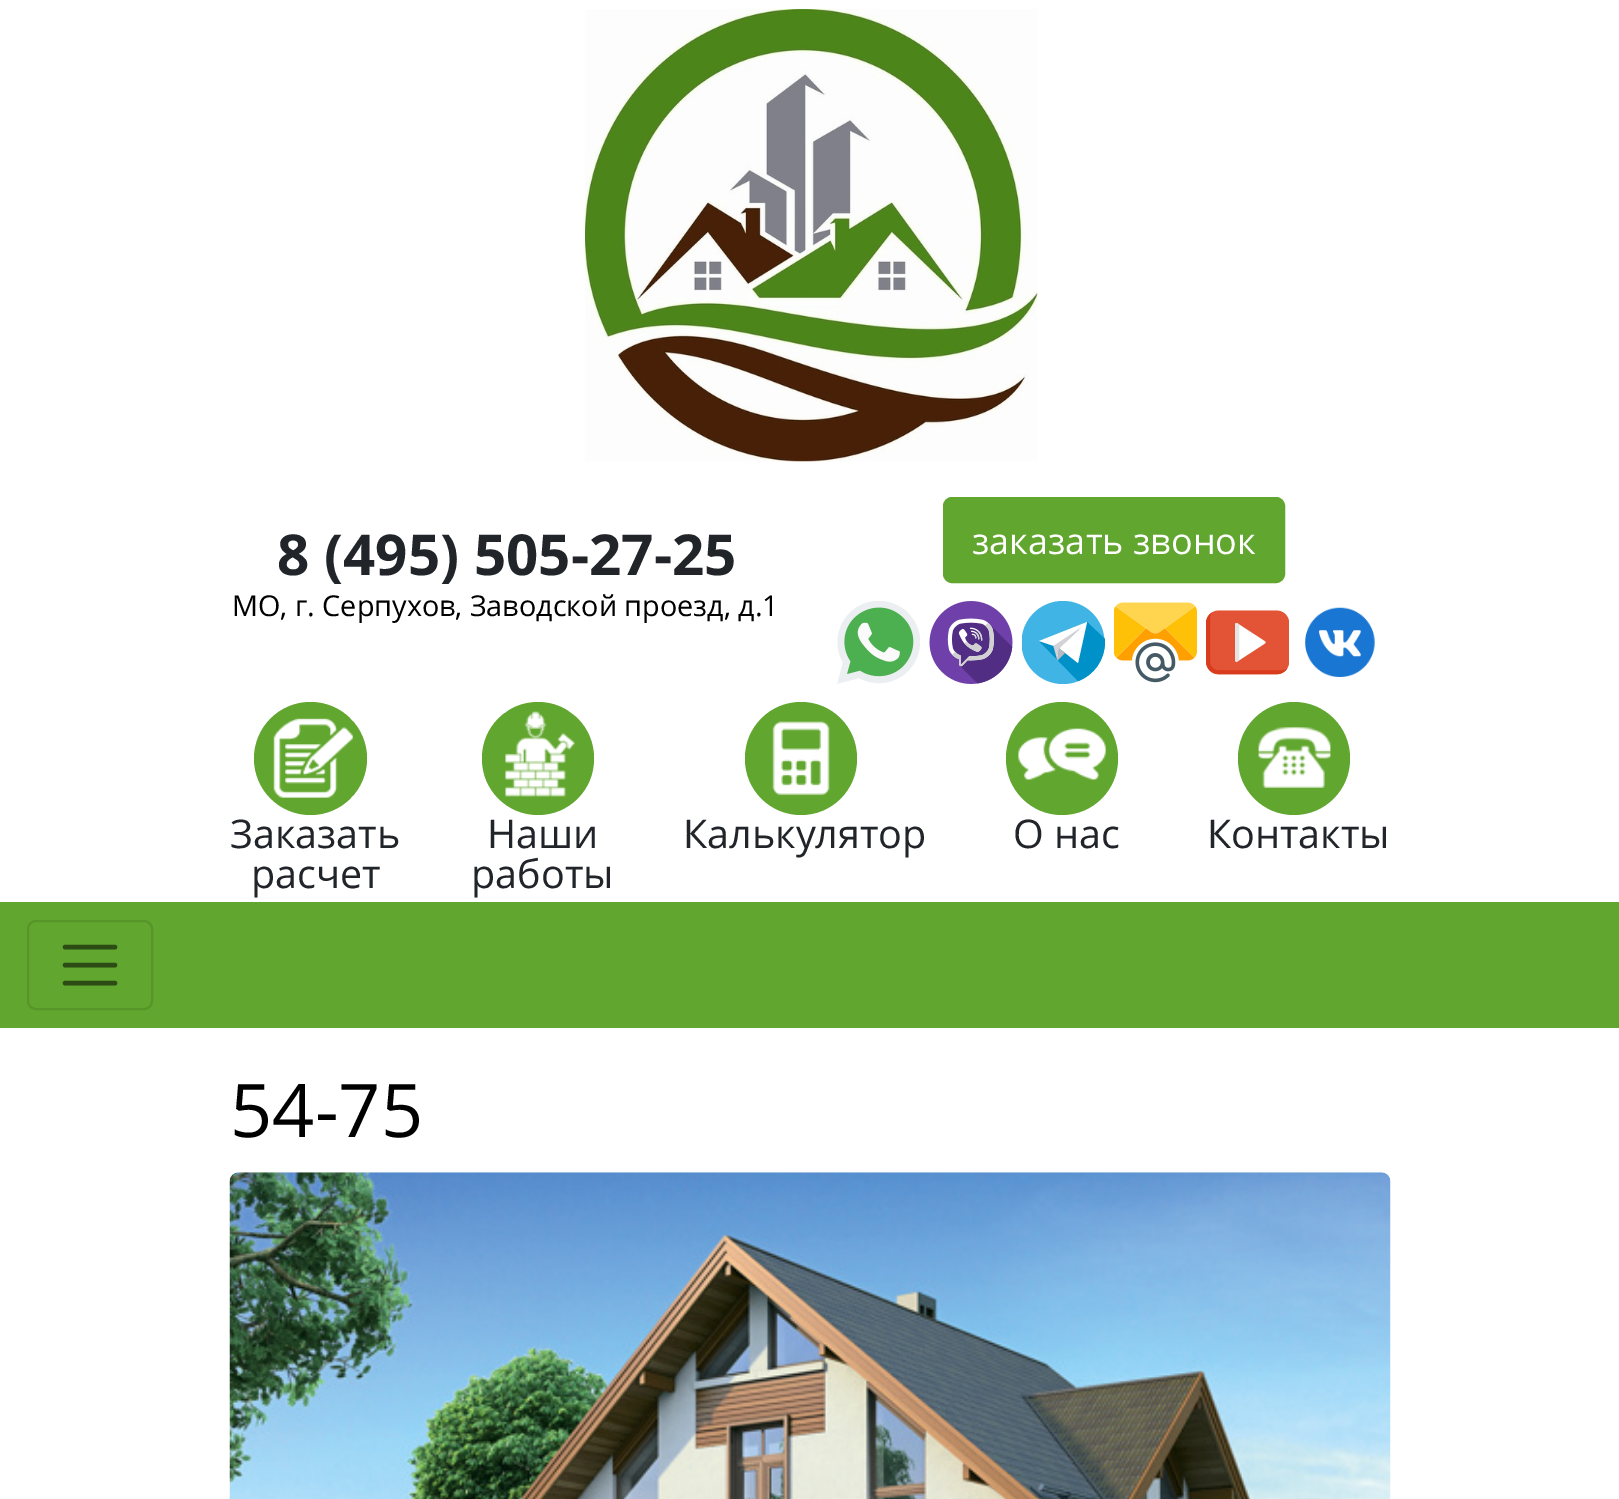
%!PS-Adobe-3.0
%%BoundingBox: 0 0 1619 1499
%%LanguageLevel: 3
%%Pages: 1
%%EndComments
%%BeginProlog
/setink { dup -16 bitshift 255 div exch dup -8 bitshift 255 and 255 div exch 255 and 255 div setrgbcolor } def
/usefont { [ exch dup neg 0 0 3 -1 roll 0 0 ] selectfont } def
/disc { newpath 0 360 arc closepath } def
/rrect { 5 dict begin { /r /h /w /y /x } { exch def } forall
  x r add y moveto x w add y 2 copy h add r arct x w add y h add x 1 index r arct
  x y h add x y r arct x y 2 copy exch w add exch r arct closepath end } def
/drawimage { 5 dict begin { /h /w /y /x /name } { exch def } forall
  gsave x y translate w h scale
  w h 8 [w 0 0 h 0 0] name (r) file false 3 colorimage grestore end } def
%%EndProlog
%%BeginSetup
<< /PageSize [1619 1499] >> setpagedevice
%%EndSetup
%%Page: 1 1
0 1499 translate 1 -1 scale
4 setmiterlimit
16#FFFFFF setink
0 0 1619 1499 rectfill
(img1.raw) 585 9 453 453 drawimage
/OpenSans-Bold 56.5 usefont
16#212529 setink
277 575 moveto (8 \(495\) 505-27-25) show
/OpenSans-Regular 28.75 usefont
16#000000 setink
232 616 moveto (МО, г. Серпухов, Заводской проезд, д.1) show
16#61A62E setink
944 498 340 84 8 rrect gsave fill grestore
2 setlinewidth
stroke
/OpenSans-Regular 36 usefont
16#FFFFFF setink
972 554 moveto (заказать звонок) show
(img2.raw) 837 601 83 83 drawimage
(img3.raw) 929 601 84 83 drawimage
gsave
1022 601 83 83 rectclip
16#41B4E6 setink
1063 642.5 41.5 disc fill
grestore
16#0091C8 setink
1105 642 moveto 1105 639 lineto 1087 622 lineto 1039 641 lineto 1078 681 lineto 1094 675 1105 660 1105 642 curveto closepath fill
16#FFFFFF setink
1059 648 moveto 1078 663 lineto 1087 622 lineto 1039 641 lineto 1054 646 lineto 1081 628 lineto closepath fill
16#D2D2D7 setink
1053.5 646 moveto 1057.5 660.5 lineto 1059 648.5 lineto 1080.5 628 lineto closepath fill
16#B9B9BE setink
1065 653 moveto 1057.5 660.5 lineto 1059 648.5 lineto closepath fill
(img4.raw) 1114 602 83 81 drawimage
(img5.raw) 1206 610 83 65 drawimage
(img6.raw) 1305 607 70 70 drawimage
16#61A62E setink
310.5 758.5 56.5 disc fill
(img7.raw) 273 718 80 80 drawimage
/OpenSans-Regular 39.5 usefont
16#212529 setink
230 848 moveto (Заказать) show
251 888 moveto (расчет) show
16#61A62E setink
482 702 112 113 56 rrect fill
(img8.raw) 505 711 70 86 drawimage
16#212529 setink
487 848 moveto (Наши) show
471 888 moveto (работы) show
16#61A62E setink
745 702 112 113 56 rrect fill
(img9.raw) 772 721 58 75 drawimage
16#212529 setink
683 848 moveto (Калькулятор) show
16#61A62E setink
1006 702 112 113 56 rrect fill
(img10.raw) 1018 728 88 52 drawimage
16#212529 setink
1013 848 moveto (О нас) show
16#61A62E setink
1238 702 112 113 56 rrect fill
(img11.raw) 1258 727 73 61 drawimage
16#212529 setink
1207 848 moveto (Контакты) show
16#61A62E setink
0 902 1619 126 rectfill
16#579529 setink
28 921 124 88 8 rrect stroke
16#2C4B15 setink
4.5 setlinewidth
1 setlinecap
65 947 moveto 115 947 lineto 65 965 moveto 115 965 lineto 65 983 moveto 115 983 lineto stroke
/OpenSans-Regular 74 usefont
16#000000 setink
230 1137 moveto (54-75) show
(img12.raw) 229 1172 1162 327 drawimage
showpage
%%EOF
